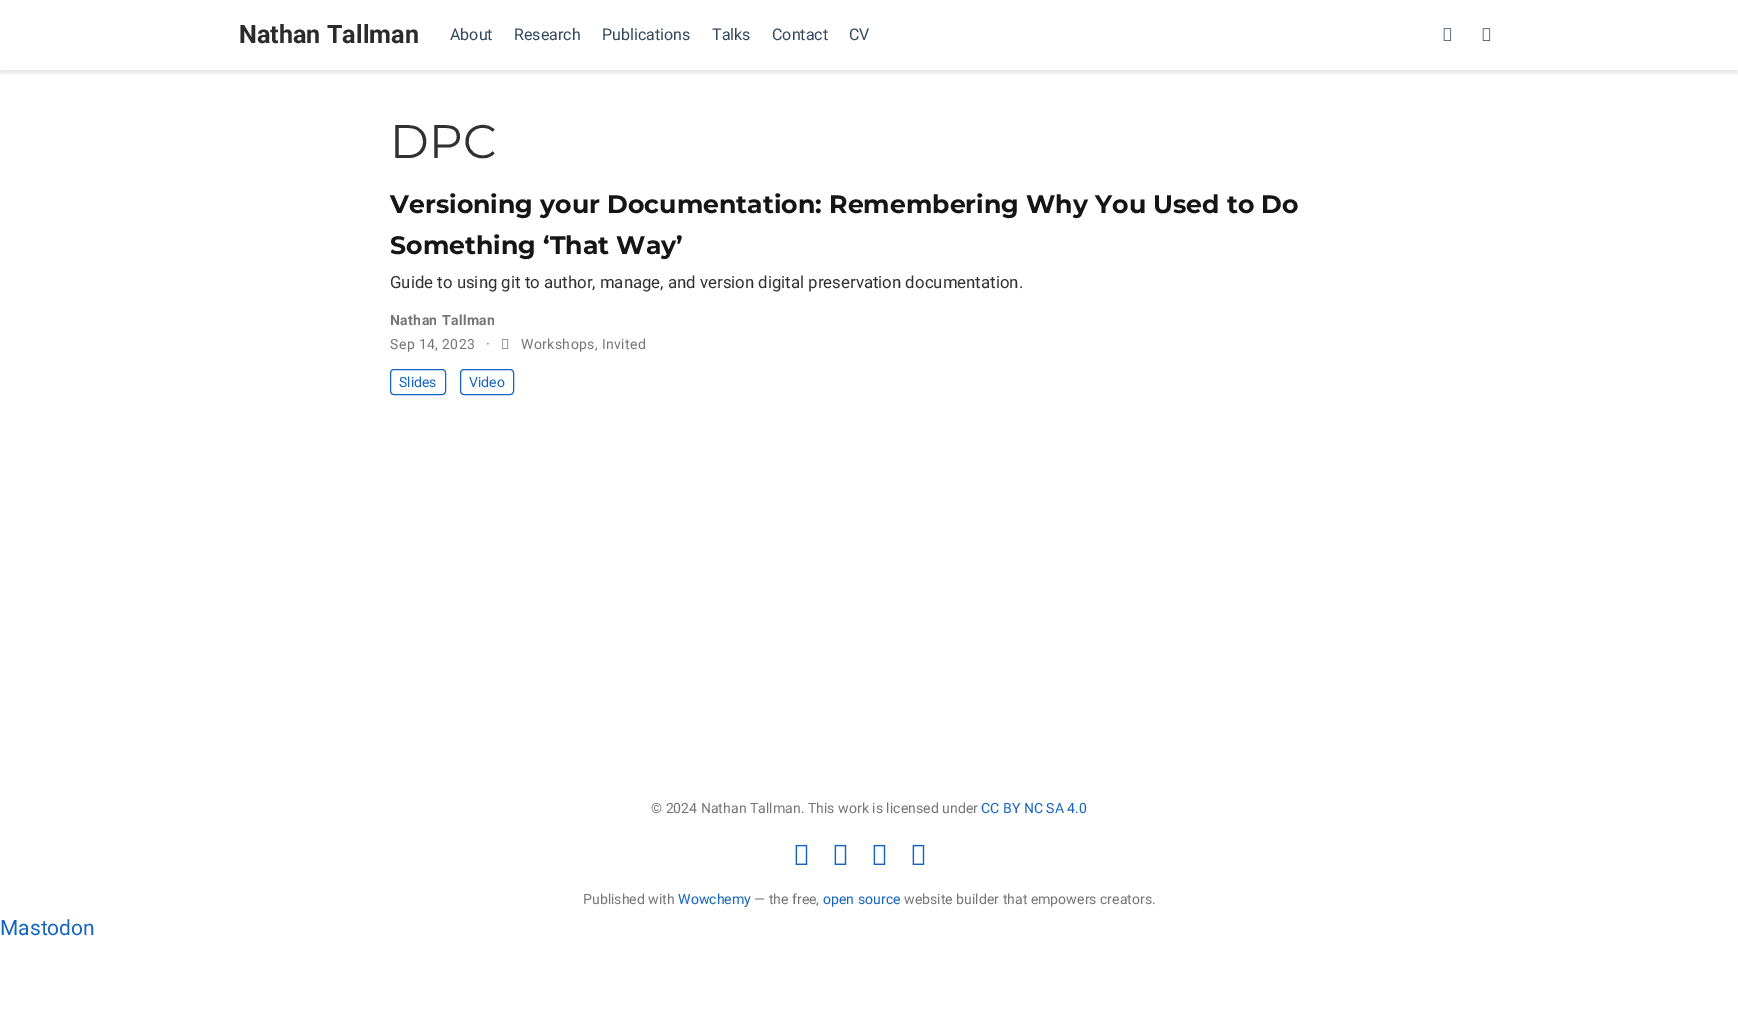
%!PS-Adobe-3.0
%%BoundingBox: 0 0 1738 1016
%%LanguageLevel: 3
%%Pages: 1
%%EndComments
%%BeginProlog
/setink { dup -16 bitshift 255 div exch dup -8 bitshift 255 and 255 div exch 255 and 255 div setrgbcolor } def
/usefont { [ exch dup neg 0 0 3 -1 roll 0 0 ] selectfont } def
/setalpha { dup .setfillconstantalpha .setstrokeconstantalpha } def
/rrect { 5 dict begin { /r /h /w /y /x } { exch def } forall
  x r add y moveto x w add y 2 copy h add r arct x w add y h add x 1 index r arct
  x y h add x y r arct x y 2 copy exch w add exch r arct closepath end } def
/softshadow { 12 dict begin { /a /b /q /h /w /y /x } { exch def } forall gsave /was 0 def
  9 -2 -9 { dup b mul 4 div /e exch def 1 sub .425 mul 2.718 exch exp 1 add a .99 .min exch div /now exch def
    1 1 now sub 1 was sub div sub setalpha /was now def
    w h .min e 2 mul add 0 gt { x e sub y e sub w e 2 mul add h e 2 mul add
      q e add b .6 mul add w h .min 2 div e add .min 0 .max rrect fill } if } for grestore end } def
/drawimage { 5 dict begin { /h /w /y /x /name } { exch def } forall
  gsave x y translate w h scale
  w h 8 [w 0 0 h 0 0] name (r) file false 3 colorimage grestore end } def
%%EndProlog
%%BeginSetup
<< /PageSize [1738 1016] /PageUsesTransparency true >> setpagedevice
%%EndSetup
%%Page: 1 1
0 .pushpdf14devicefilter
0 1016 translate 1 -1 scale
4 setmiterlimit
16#FFFFFF setink
0 0 1738 1016 rectfill
gsave
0 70 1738 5 rectclip
16#000000 setink
0 3 1738 70 0 2.5 0.11 softshadow
grestore
/Roboto-Bold 25.2 usefont
16#2B2B2B setink
239 43 moveto (Nathan Tallman) show
/Roboto-Regular 16 usefont
16#34495E setink
[
    [(About) 450 40]
    [(Research) 514 40]
    [(Publications) 602 40]
    [(Talks) 712 40]
    [(Contact) 772 40]
    [(CV) 849 40]
] { aload pop moveto show } forall
(img1.raw) 1443 28 9 13 drawimage
(img1.raw) 1482 28 9 13 drawimage
/Montserrat-Regular 47 usefont
16#313131 setink
390 158 moveto (DPC) show
/Montserrat-Bold 25.2 usefont
16#151515 setink
390 213 moveto (Versioning your Documentation: Remembering Why You Used to Do) show
390 254 moveto (Something ‘That Way’) show
/Roboto-Regular 16.8 usefont
16#313131 setink
390 288 moveto (Guide to using git to author, manage, and version digital preservation documentation.) show
/Roboto-Bold 14 usefont
16#757575 setink
390 325 moveto 0.4 0 (Nathan Tallman) ashow
/Roboto-Regular 14 usefont
390 349 moveto 0.4 0 (Sep 14, 2023) ashow
/Roboto-Regular 15 usefont
486 349 moveto 0.4 0 (·) ashow
(img2.raw) 502 339 7 10 drawimage
/Roboto-Regular 14 usefont
521 349 moveto 0.4 0 (Workshops, Invited) ashow
16#1565C0 setink
390.5 369.5 55 25 3.5 rrect stroke
399 387 moveto (Slides) show
460.5 369.5 53 25 3.5 rrect stroke
469 387 moveto (Video) show
/Roboto-Regular 14.1 usefont
16#757575 setink
651 813 moveto (© 2024 Nathan Tallman. This work is licensed under) show
16#1565C0 setink
981 813 moveto (CC BY NC SA 4.0) show
(img3.raw) 795 844 13 21 drawimage
(img3.raw) 834 844 13 21 drawimage
(img3.raw) 873 844 13 21 drawimage
(img3.raw) 912 844 13 21 drawimage
16#757575 setink
583 904 moveto (Published with) show
16#1565C0 setink
678 904 moveto (Wowchemy) show
16#757575 setink
754 904 moveto (— the free,) show
16#1565C0 setink
823 904 moveto (open source) show
16#757575 setink
904 904 moveto (website builder that empowers creators.) show
/Roboto-Regular 21 usefont
16#1565C0 setink
0 935 moveto (Mastodon) show
.poppdf14devicefilter showpage
%%EOF
